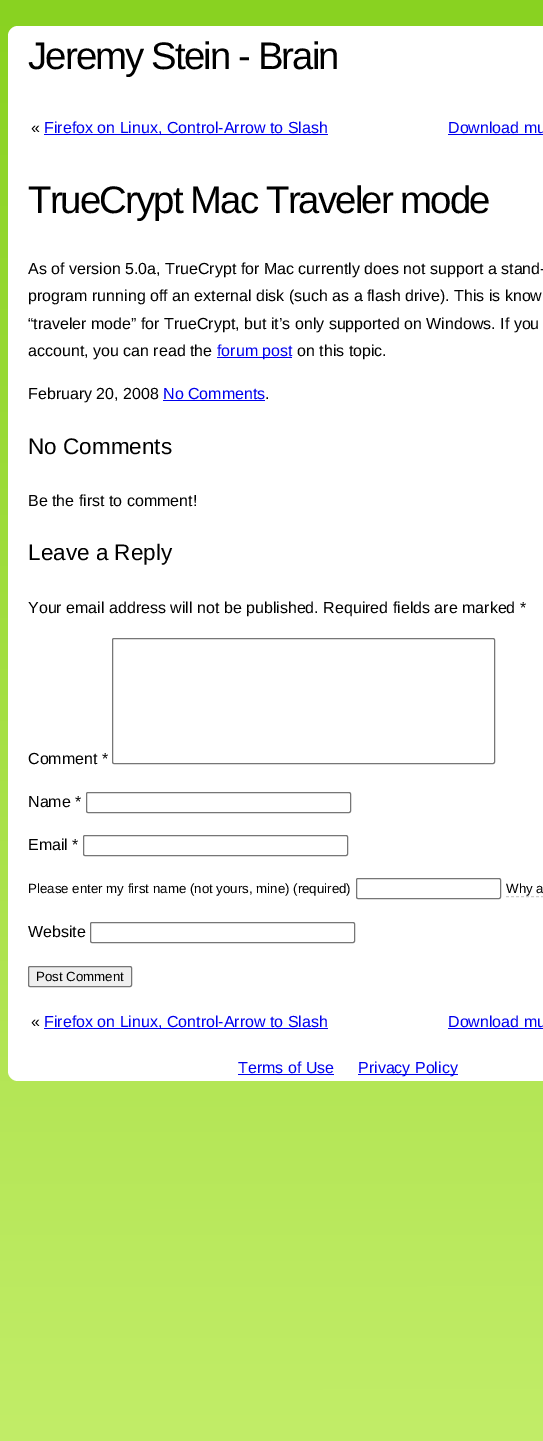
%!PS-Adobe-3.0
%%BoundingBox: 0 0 543 1441
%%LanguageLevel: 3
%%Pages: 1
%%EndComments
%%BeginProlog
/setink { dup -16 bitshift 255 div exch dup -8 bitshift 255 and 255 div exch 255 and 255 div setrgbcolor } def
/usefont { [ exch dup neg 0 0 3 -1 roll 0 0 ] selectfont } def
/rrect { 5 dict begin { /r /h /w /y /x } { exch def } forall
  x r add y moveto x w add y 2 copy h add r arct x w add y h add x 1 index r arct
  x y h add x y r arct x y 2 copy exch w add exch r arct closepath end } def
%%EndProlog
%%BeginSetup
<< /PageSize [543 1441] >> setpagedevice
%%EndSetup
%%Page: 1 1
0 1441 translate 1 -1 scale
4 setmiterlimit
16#FFFFFF setink
0 0 543 1441 rectfill
gsave 0 0 moveto 543 0 lineto 543 1441 lineto 0 1441 lineto closepath clip newpath
<< /ShadingType 2 /ColorSpace /DeviceRGB /Coords [271 0 272 1441] /Extend [true true] /Function << /FunctionType 2 /Domain [0 1] /C0 [0.537 0.824 0.129] /C1 [0.761 0.929 0.408] /N 1 >> >> shfill grestore
8 26 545 1055 10 rrect fill
/LiberationSans-Regular 38.4 usefont
16#000000 setink
28 69 moveto -1.9 0 (Jeremy Stein - Brain) ashow
/LiberationSans-Regular 16 usefont
31 133 moveto («) show
16#0000EE setink
44 134 284 1 rectfill
44 133 moveto (Firefox on Linux, Control-Arrow to Slash) show
448 133 moveto (Download mu) show
448 134 95 1 rectfill
/LiberationSans-Regular 38.4 usefont
16#000000 setink
28 213 moveto -1.9 0 (TrueCrypt Mac Traveler mode) ashow
/LiberationSans-Regular 16 usefont
[
    [(As of version 5.0a, TrueCrypt for Mac currently does not support a stand-) 28 274]
    [(program running off an external disk \(such as a flash drive\). This is know) 28 301]
    [(“traveler mode” for TrueCrypt, but it’s only supported on Windows. If you) 28 329]
    [(account, you can read the) 28 356]
] { aload pop moveto show } forall
16#0000EE setink
217 357 75 1 rectfill
217 356 moveto (forum post) show
16#000000 setink
297 356 moveto (on this topic.) show
28 399 moveto (February 20, 2008) show
16#0000EE setink
163 399 moveto (No Comments) show
163 400 102 1 rectfill
16#000000 setink
265 399 moveto (.) show
/LiberationSans-Regular 22.5 usefont
28 454 moveto (No Comments) show
/LiberationSans-Regular 16 usefont
28 506 moveto (Be the first to comment!) show
/LiberationSans-Regular 22.5 usefont
28 560 moveto (Leave a Reply) show
/LiberationSans-Regular 16 usefont
28 613 moveto (Your email address will not be published. Required fields are marked *) show
28 764 moveto (Comment *) show
16#767676 setink
112.5 638.5 382 125 1.5 rrect stroke
16#000000 setink
28 807 moveto (Name *) show
16#767676 setink
86.5 792.5 264 20 1.5 rrect stroke
16#000000 setink
28 850 moveto (Email *) show
16#767676 setink
83.5 835.5 264 20 1.5 rrect stroke
/LiberationSans-Regular 13.3 usefont
16#000000 setink
28 893 moveto (Please enter my first name \(not yours, mine\) \(required\)) show
16#767676 setink
356.5 878.5 144 20 1.5 rrect stroke
16#000000 setink
506 893 moveto (Why a) show
16#CCCCCC setink
[3 2] 0 setdash
506 896.5 moveto 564 896.5 lineto stroke
/LiberationSans-Regular 16 usefont
16#000000 setink
28 937 moveto (Website) show
16#767676 setink
[] 0 setdash
90.5 922.5 264 20 1.5 rrect stroke
16#EFEFEF setink
28.5 966.5 103 20 1.5 rrect gsave fill grestore
16#767676 setink
stroke
/LiberationSans-Regular 13.3 usefont
16#000000 setink
36 981 moveto (Post Comment) show
/LiberationSans-Regular 16 usefont
31 1027 moveto («) show
16#0000EE setink
44 1028 284 1 rectfill
44 1027 moveto (Firefox on Linux, Control-Arrow to Slash) show
448 1027 moveto (Download mu) show
448 1028 95 1 rectfill
238 1073 moveto (Terms of Use) show
238 1074 96 1 rectfill
358 1074 100 1 rectfill
358 1073 moveto (Privacy Policy) show
showpage
%%EOF
